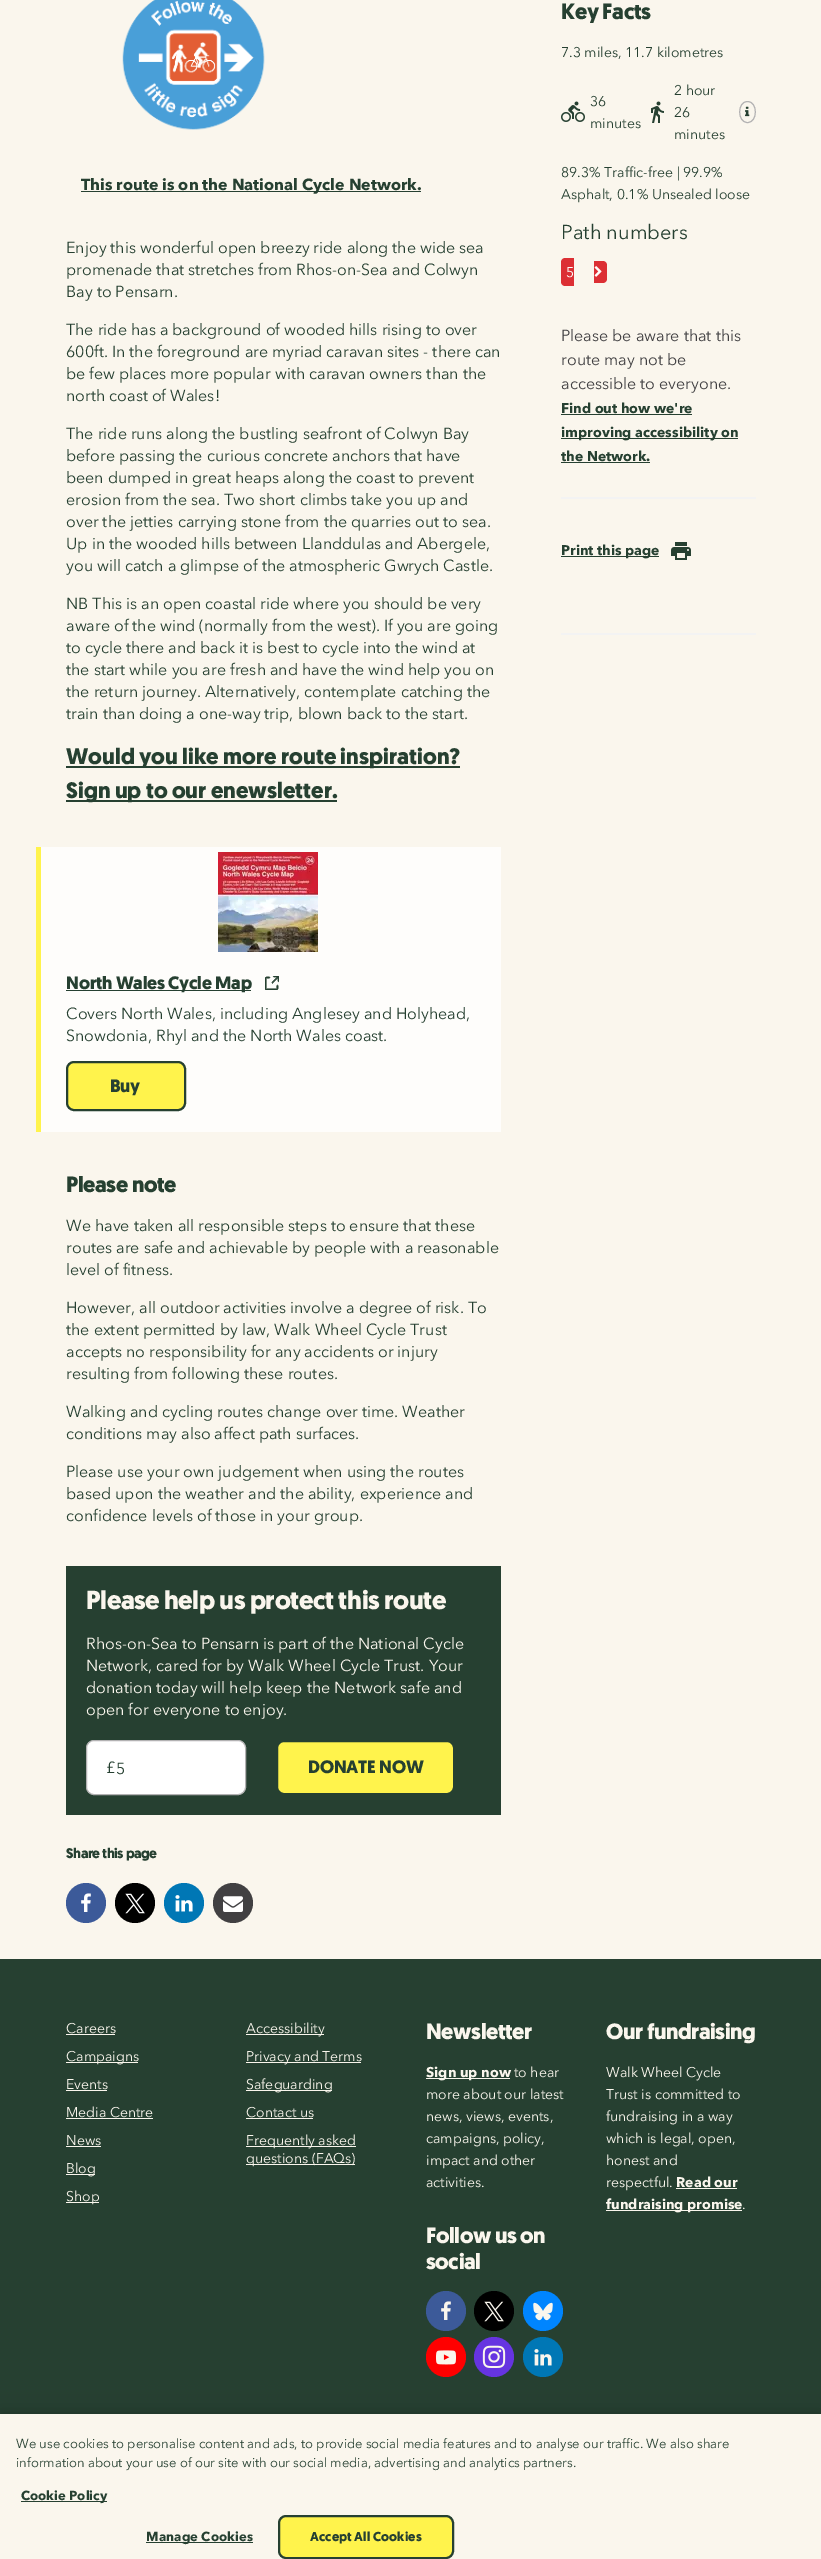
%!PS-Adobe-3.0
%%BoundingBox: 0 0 821 2559
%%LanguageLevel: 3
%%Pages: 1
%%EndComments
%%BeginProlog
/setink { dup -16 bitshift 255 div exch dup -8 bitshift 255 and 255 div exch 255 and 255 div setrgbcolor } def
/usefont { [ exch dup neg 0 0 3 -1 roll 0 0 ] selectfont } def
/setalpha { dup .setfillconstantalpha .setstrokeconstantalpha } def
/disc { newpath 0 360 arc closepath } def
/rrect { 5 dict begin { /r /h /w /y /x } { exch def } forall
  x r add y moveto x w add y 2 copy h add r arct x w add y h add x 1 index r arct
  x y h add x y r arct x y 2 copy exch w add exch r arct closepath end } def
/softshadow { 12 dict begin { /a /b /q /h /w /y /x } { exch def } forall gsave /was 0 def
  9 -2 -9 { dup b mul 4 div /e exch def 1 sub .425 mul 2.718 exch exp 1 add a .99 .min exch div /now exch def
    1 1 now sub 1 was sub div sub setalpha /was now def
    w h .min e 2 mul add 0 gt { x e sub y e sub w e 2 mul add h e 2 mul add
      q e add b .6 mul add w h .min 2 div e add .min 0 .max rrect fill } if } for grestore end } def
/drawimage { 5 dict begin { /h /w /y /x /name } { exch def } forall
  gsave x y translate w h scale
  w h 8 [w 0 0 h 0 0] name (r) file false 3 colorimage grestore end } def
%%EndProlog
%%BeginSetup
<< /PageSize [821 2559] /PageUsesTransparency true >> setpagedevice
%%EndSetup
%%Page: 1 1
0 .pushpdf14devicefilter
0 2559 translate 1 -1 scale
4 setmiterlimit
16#FAF6ED setink
0 0 821 2559 rectfill
(img1.raw) 122 0 143 130 drawimage
16#264031 setink
81 191 340 1 rectfill
/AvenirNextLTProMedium-Bold 16 usefont
81 190 moveto (This route is on the National Cycle Network.) show
/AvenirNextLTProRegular-Regular 16 usefont
[
    [(Enjoy this wonderful open breezy ride along the wide sea) 66 253]
    [(promenade that stretches from Rhos-on-Sea and Colwyn) 66 275]
    [(Bay to Pensarn.) 66 297]
    [(The ride has a background of wooded hills rising to over) 66 335]
    [(600ft. In the foreground are myriad caravan sites - there can) 66 357]
    [(be few places more popular with caravan owners than the) 66 379]
    [(north coast of Wales!) 66 401]
    [(The ride runs along the bustling seafront of Colwyn Bay) 66 439]
    [(before passing the curious concrete anchors that have) 66 461]
    [(been dumped in great heaps along the coast to prevent) 66 483]
    [(erosion from the sea. Two short climbs take you up and) 66 505]
    [(over the jetties carrying stone from the quarries out to sea.) 66 527]
    [(Up in the wooded hills between Llanddulas and Abergele,) 66 549]
    [(you will catch a glimpse of the atmospheric Gwrych Castle.) 66 571]
    [(NB This is an open coastal ride where you should be very) 66 609]
    [(aware of the wind \(normally from the west\). If you are going) 66 631]
    [(to cycle there and back it is best to cycle into the wind at) 66 653]
    [(the start while you are fresh and have the wind help you on) 66 675]
    [(the return journey. Alternatively, contemplate catching the) 66 697]
    [(train than doing a one-way trip, blown back to the start.) 66 719]
] { aload pop moveto show } forall
66 766 394 2 rectfill
/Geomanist-Bold 22.4 usefont
66 764 moveto (Would you like more route inspiration?) show
66 800 271 2 rectfill
66 798 moveto (Sign up to our enewsletter.) show
16#FEFDFB setink
41 847 460 285 rectfill
16#FFF34C setink
36 847 5 285 rectfill
(img2.raw) 218 852 100 100 drawimage
16#264031 setink
66 990 185 1 rectfill
/Geomanist-Bold 18 usefont
66 989 moveto -0.2 0 (North Wales Cycle Map) ashow
(img3.raw) 265 976 14 14 drawimage
/AvenirNextLTProRegular-Regular 16 usefont
66 1019 moveto (Covers North Wales, including Anglesey and Holyhead,) show
66 1041 moveto (Snowdonia, Rhyl and the North Wales coast.) show
16#FFF34C setink
67 1062 118 48 7 rrect gsave fill grestore
16#264031 setink
2 setlinewidth
stroke
/Geomanist-Bold 18 usefont
110 1092 moveto -0.2 0 (Buy) ashow
/Geomanist-Bold 22 usefont
66 1192 moveto -0.4 0 (Please note) ashow
/AvenirNextLTProRegular-Regular 16 usefont
[
    [(We have taken all responsible steps to ensure that these) 66 1231]
    [(routes are safe and achievable by people with a reasonable) 66 1253]
    [(level of fitness.) 66 1275]
    [(However, all outdoor activities involve a degree of risk. To) 66 1313]
    [(the extent permitted by law, Walk Wheel Cycle Trust) 66 1335]
    [(accepts no responsibility for any accidents or injury) 66 1357]
    [(resulting from following these routes.) 66 1379]
    [(Walking and cycling routes change over time. Weather) 66 1417]
    [(conditions may also affect path surfaces.) 66 1439]
    [(Please use your own judgement when using the routes) 66 1477]
    [(based upon the weather and the ability, experience and) 66 1499]
    [(confidence levels of those in your group.) 66 1521]
] { aload pop moveto show } forall
66 1566 435 249 rectfill
/Geomanist-Bold 26 usefont
16#FAF6ED setink
86 1609 moveto -0.4 0 (Please help us protect this route) ashow
/AvenirNextLTProRegular-Regular 16 usefont
[
    [(Rhos-on-Sea to Pensarn is part of the National Cycle) 86 1649]
    [(Network, cared for by Walk Wheel Cycle Trust. Your) 86 1671]
    [(donation today will help keep the Network safe and) 86 1693]
    [(open for everyone to enjoy.) 86 1715]
] { aload pop moveto show } forall
16#FFFFFF setink
86.5 1740.5 159 54 7.5 rrect gsave fill grestore
16#B3B2B3 setink
1 setlinewidth
stroke
16#264031 setink
106 1773 moveto (£) show
116 1774 moveto (5) show
16#FFF34C setink
277 1741 177 53 7 rrect gsave fill grestore
16#264031 setink
2 setlinewidth
stroke
/Geomanist-Bold 18 usefont
308 1773 moveto -0.2 0 (DONATE NOW) ashow
/Geomanist-Bold 14 usefont
66 1858 moveto -0.4 0 (Share this page) ashow
16#3C5A99 setink
86 1903 20 disc fill
(img4.raw) 81 1893 10 19 drawimage
16#000000 setink
135 1903 20 disc fill
(img5.raw) 125 1893 20 21 drawimage
16#0077B5 setink
184 1903 20 disc fill
(img6.raw) 175 1895 18 17 drawimage
16#414042 setink
233 1903 20 disc fill
(img7.raw) 223 1896 20 16 drawimage
16#F3F3F3 setink
561 633 195 2 rectfill
/Geomanist-Bold 22 usefont
16#264031 setink
561 19 moveto -0.4 0 (Key Facts) ashow
/AvenirNextLTProRegular-Regular 14 usefont
561 57 moveto (7.3 miles, 11.7 kilometres) show
(img8.raw) 561 101 24 21 drawimage
590 106 moveto (36) show
590 128 moveto (minutes) show
(img9.raw) 651 101 13 22 drawimage
[
    [(2 hour) 674 95]
    [(26) 674 117]
    [(minutes) 674 139]
] { aload pop moveto show } forall
16#B3B2B3 setink
1 setlinewidth
747.5 101.5 moveto 758 101.5 758 122.5 747.5 122.5 curveto 737 122.5 737 101.5 747.5 101.5 curveto closepath stroke
(img10.raw) 745 106 5 11 drawimage
16#264031 setink
561 177 moveto (89.3% Traffic-free | 99.9%) show
561 199 moveto (Asphalt, 0.1% Unsealed loose) show
/AvenirNextLTProRegular-Regular 20 usefont
561 239 moveto (Path numbers) show
16#DC2F34 setink
565 258 moveto 574 258 lineto 574 286 lineto 565 286 lineto 563 286 561 284 561 282 curveto 561 262 lineto 561 260 563 258 565 258 curveto closepath fill
/AvenirNextLTProRegular-Regular 14 usefont
16#FEFDFB setink
566 277 moveto (5) show
16#DC2F34 setink
594 261 moveto 603 261 lineto 605 261 607 263 607 265 curveto 607 279 lineto 607 281 605 283 603 283 curveto 594 283 lineto closepath fill
(img11.raw) 594 266 8 11 drawimage
/AvenirNextLTProRegular-Regular 16 usefont
16#414042 setink
[
    [(Please be aware that this) 561 341]
    [(route may not be) 561 365]
    [(accessible to everyone.) 561 389]
] { aload pop moveto show } forall
/AvenirNextLTProMedium-Bold 14 usefont
16#264031 setink
561 413 moveto (Find out how we're) show
561 414 131 1 rectfill
561 438 177 1 rectfill
561 437 moveto (improving accessibility on) show
561 461 moveto (the Network.) show
[
    [561 462 89 1 16#264031]
    [561 497 195 2 16#F3F3F3]
    [561 556 98 1 16#264031]
] { aload pop setink rectfill } forall
561 555 moveto (Print this page) show
(img12.raw) 671 542 20 18 drawimage
0 1959 821 455 rectfill
/AvenirNextLTProRegular-Regular 14 usefont
16#FAF6ED setink
66 2033 moveto (Careers) show
66 2034 49 1 rectfill
66 2062 72 1 rectfill
66 2061 moveto (Campaigns) show
66 2089 moveto (Events) show
66 2090 41 1 rectfill
66 2117 moveto (Media Centre) show
66 2118 87 1 rectfill
66 2145 moveto (News) show
66 2146 35 1 rectfill
66 2174 29 1 rectfill
66 2173 moveto (Blog) show
66 2202 33 1 rectfill
66 2201 moveto (Shop) show
246 2034 78 1 rectfill
246 2033 moveto (Accessibility) show
246 2062 115 1 rectfill
246 2061 moveto (Privacy and Terms) show
246 2090 86 1 rectfill
246 2089 moveto (Safeguarding) show
246 2117 moveto (Contact us) show
246 2118 67 1 rectfill
246 2146 110 1 rectfill
246 2145 moveto (Frequently asked) show
246 2164 109 1 rectfill
246 2163 moveto (questions \(FAQs\)) show
/Geomanist-Bold 22 usefont
426 2039 moveto -0.4 0 (Newsletter) ashow
426 2078 84 1 rectfill
/AvenirNextLTProMedium-Bold 14 usefont
426 2077 moveto (Sign up now) show
/AvenirNextLTProRegular-Regular 14 usefont
[
    [(to hear) 514 2077]
    [(more about our latest) 426 2099]
    [(news, views, events,) 426 2121]
    [(campaigns, policy,) 426 2143]
    [(impact and other) 426 2165]
    [(activities.) 426 2187]
] { aload pop moveto show } forall
/Geomanist-Bold 22 usefont
426 2243 moveto -0.4 0 (Follow us on) ashow
426 2269 moveto -0.4 0 (social) ashow
16#3C5A99 setink
446 2311 20 disc fill
(img13.raw) 441 2301 10 19 drawimage
16#000000 setink
494 2311 20 disc fill
(img14.raw) 484 2301 20 21 drawimage
16#0085FF setink
543 2311 20 disc fill
(img15.raw) 533 2302 20 19 drawimage
16#FF0000 setink
446 2357 20 disc fill
(img16.raw) 436 2350 20 15 drawimage
16#6634E1 setink
494 2357 20 disc fill
(img17.raw) 482 2345 24 23 drawimage
16#0077B5 setink
543 2357 20 disc fill
(img18.raw) 534 2349 18 17 drawimage
16#FAF6ED setink
606 2039 moveto -0.4 0 (Our fundraising) ashow
/AvenirNextLTProRegular-Regular 14 usefont
[
    [(Walk Wheel Cycle) 606 2077]
    [(Trust is committed to) 606 2099]
    [(fundraising in a way) 606 2121]
    [(which is legal, open,) 606 2143]
    [(honest and) 606 2165]
    [(respectful.) 606 2187]
] { aload pop moveto show } forall
/AvenirNextLTProMedium-Bold 14 usefont
676 2187 moveto (Read our) show
676 2188 61 1 rectfill
606 2210 136 1 rectfill
606 2209 moveto (fundraising promise) show
/AvenirNextLTProRegular-Regular 14 usefont
742 2209 moveto (.) show
16#000000 setink
0 2414 821 145 0 9 0.2 softshadow
16#FAF6ED setink
0 2414 821 145 rectfill
/AvenirNextLTProRegular-Regular 13 usefont
16#264031 setink
16 2448 moveto (We use cookies to personalise content and ads, to provide social media features and to analyse our traffic. We also share) show
16 2467 moveto (information about your use of our site with our social media, advertising and analytics partners.) show
21 2501 86 1 rectfill
/AvenirNextLTProMedium-Bold 13 usefont
21 2500 moveto (Cookie Policy) show
146 2542 107 1 rectfill
146 2541 moveto 0.1 0 (Manage Cookies) ashow
16#FFF34C setink
279 2516 174 42 7 rrect gsave fill grestore
16#264031 setink
2 setlinewidth
stroke
/Geomanist-Bold 13 usefont
310 2541 moveto 0.1 0 (Accept All Cookies) ashow
.poppdf14devicefilter showpage
%%EOF
